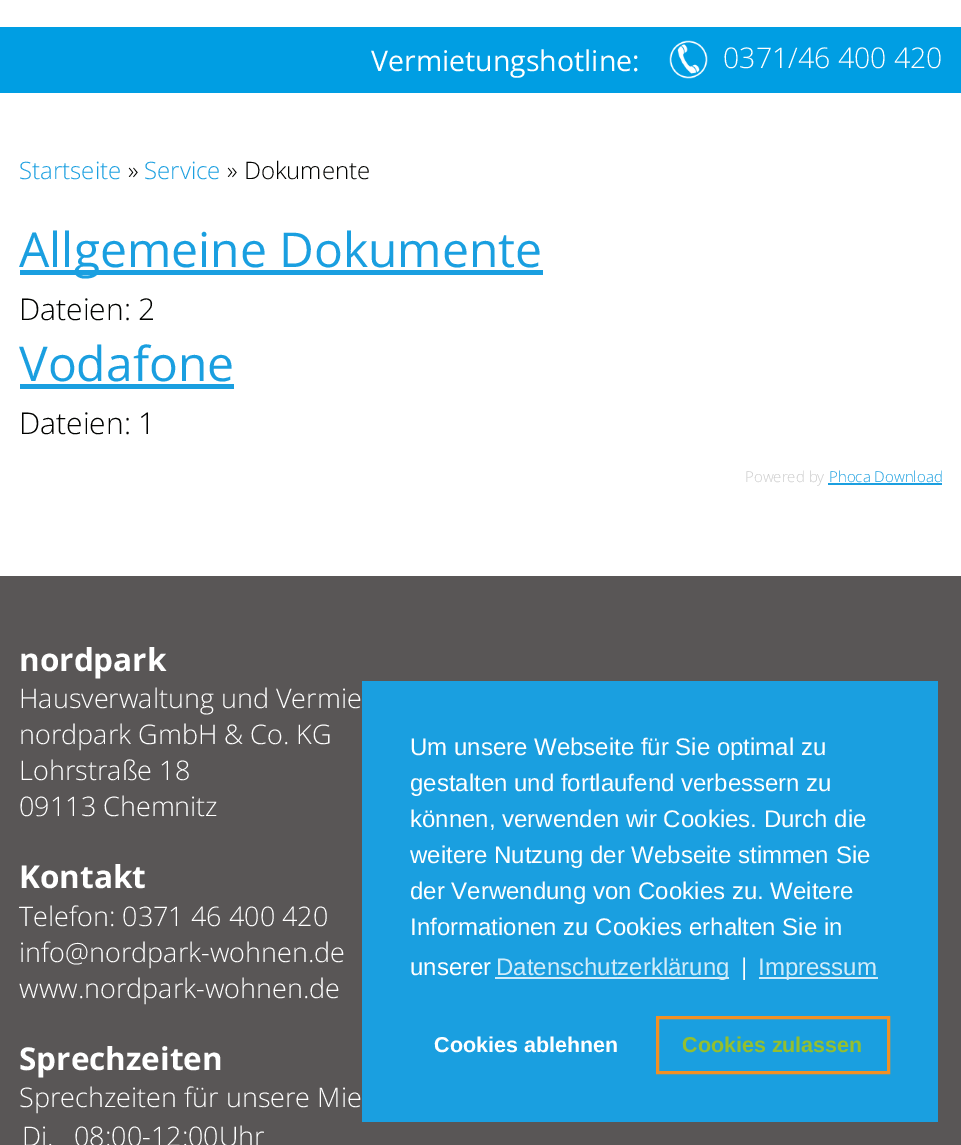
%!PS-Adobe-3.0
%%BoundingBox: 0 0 961 1145
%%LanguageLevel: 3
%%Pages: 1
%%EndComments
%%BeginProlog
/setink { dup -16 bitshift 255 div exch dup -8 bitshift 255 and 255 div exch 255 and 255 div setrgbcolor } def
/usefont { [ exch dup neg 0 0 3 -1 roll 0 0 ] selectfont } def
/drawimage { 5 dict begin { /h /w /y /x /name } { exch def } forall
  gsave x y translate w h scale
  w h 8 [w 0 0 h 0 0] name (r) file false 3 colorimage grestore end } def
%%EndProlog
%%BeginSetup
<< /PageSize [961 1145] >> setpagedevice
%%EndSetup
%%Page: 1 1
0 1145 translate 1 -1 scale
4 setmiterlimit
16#FFFFFF setink
0 0 961 1145 rectfill
16#009EE3 setink
0 27 961 66 rectfill
/OpenSans-Regular 28.5 usefont
16#FFFFFF setink
371 71 moveto (Vermietungshotline:) show
(img1.raw) 669 40 39 39 drawimage
/OpenSans-Light 28.5 usefont
723 68 moveto (0371/46 400 420) show
/OpenSans-Light 24 usefont
16#1A9FE0 setink
19 179 moveto (Startseite) show
16#010200 setink
128 179 moveto (») show
16#1A9FE0 setink
144 179 moveto (Service) show
16#010200 setink
227 179 moveto (» Dokumente) show
16#1A9FE0 setink
20 270 523 5 rectfill
/OpenSans-Regular 48 usefont
19 267 moveto (Allgemeine Dokumente) show
/OpenSans-Light 30 usefont
16#010200 setink
19 320 moveto (Dateien: 2) show
/OpenSans-Regular 48 usefont
16#1A9FE0 setink
19 381 moveto (Vodafone) show
20 384 214 5 rectfill
/OpenSans-Light 30 usefont
16#010200 setink
19 434 moveto (Dateien: 1) show
/OpenSans-Light 15 usefont
16#CCCCCC setink
745 482 moveto (Powered by) show
16#1A9FE0 setink
829 482 moveto (Phoca Download) show
828 483 114 2 rectfill
16#595656 setink
0 576 961 569 rectfill
/OpenSans-Bold 31.5 usefont
16#FFFFFF setink
19 671 moveto (nordpark) show
/OpenSans-Light 27 usefont
[
    [(Hausverwaltung und Vermie) 19 708]
    [(nordpark GmbH & Co. KG) 19 744]
    [(Lohrstraße 18) 19 780]
    [(09113 Chemnitz) 19 816]
] { aload pop moveto show } forall
/OpenSans-Bold 31.5 usefont
19 888 moveto (Kontakt) show
/OpenSans-Light 27 usefont
[
    [(Telefon: 0371 46 400 420) 19 926]
    [(info@nordpark-wohnen.de) 19 962]
    [(www.nordpark-wohnen.de) 19 998]
] { aload pop moveto show } forall
/OpenSans-Bold 31.5 usefont
19 1070 moveto (Sprechzeiten) show
/OpenSans-Light 27 usefont
[
    [(Sprechzeiten für unsere Mie) 19 1107]
    [(Di.) 22 1146]
    [(08:00-12:00Uhr) 74 1146]
] { aload pop moveto show } forall
16#1A9FE0 setink
362 681 576 441 rectfill
/LiberationSans-Regular 24 usefont
16#FFFFFF setink
[
    [(Um unsere Webseite für Sie optimal zu) 410 755]
    [(gestalten und fortlaufend verbessern zu) 410 791]
    [(können, verwenden wir Cookies. Durch die) 410 827]
    [(weitere Nutzung der Webseite stimmen Sie) 410 863]
    [(der Verwendung von Cookies zu. Weitere) 410 899]
    [(Informationen zu Cookies erhalten Sie in) 410 935]
    [(unserer) 410 975]
] { aload pop moveto show } forall
16#D1ECF9 setink
495 977 234 2 rectfill
496 975 moveto (Datenschutzerklärung) show
16#FFFFFF setink
741 975 moveto (|) show
16#D1ECF9 setink
759 977 119 2 rectfill
758 975 moveto (Impressum) show
/LiberationSans-Bold 21.5 usefont
16#FFFFFF setink
434 1052 moveto (Cookies ablehnen) show
16#F19024 setink
3 setlinewidth
657.5 1017.5 231 55 rectstroke
16#94BF30 setink
682 1052 moveto (Cookies zulassen) show
showpage
%%EOF
